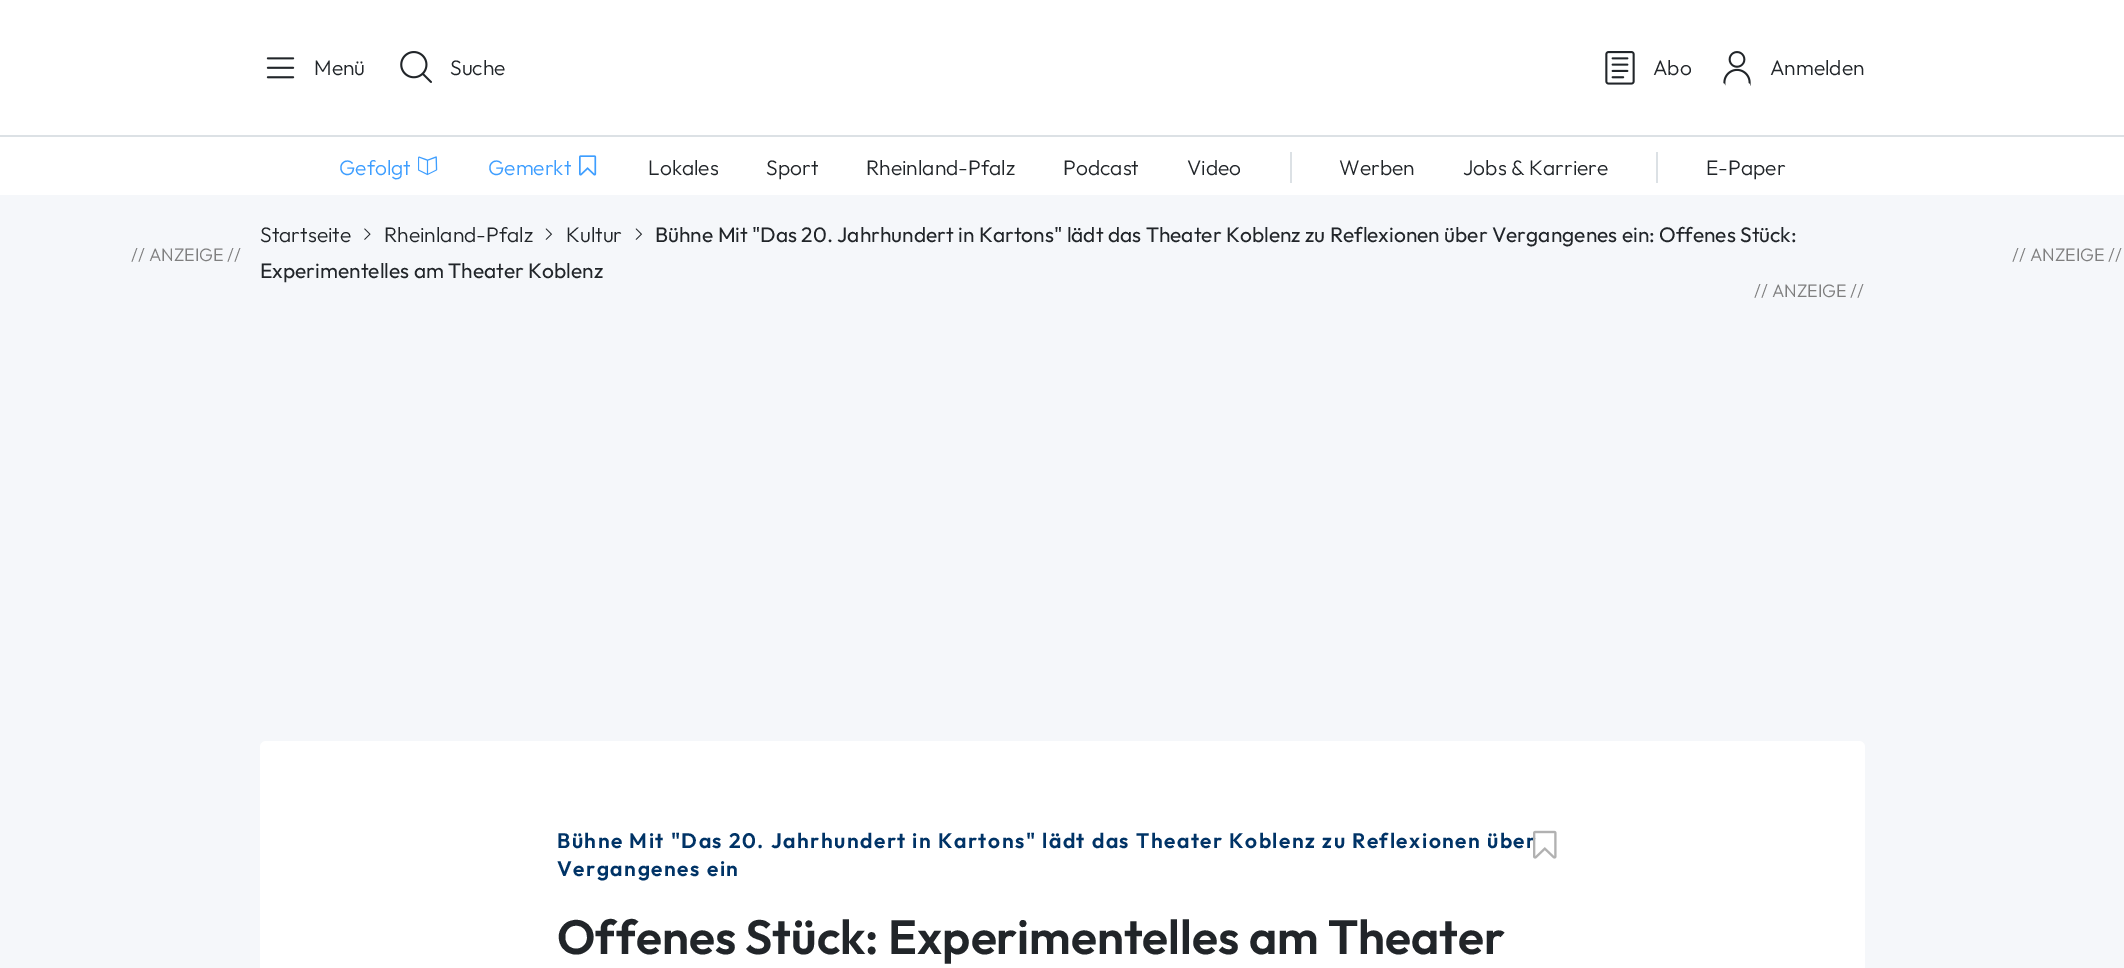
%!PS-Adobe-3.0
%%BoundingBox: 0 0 2124 968
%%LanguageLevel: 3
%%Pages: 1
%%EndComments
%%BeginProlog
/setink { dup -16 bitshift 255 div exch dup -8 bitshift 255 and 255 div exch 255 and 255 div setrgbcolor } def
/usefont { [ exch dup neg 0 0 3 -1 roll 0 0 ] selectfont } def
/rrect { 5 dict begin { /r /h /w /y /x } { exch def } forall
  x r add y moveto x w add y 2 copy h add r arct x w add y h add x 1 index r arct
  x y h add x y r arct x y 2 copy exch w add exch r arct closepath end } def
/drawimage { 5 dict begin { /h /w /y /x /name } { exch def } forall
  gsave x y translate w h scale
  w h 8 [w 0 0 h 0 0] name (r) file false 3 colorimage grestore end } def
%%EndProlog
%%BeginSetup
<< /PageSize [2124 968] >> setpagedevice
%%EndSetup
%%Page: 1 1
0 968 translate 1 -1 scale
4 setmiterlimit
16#F5F7FA setink
0 0 2124 968 rectfill
16#FFFFFF setink
0 0 2124 195 rectfill
(img1.raw) 266 57 29 22 drawimage
/Outfit-Light 21 usefont
16#212529 setink
314 75 moveto (Menü) show
(img2.raw) 400 51 32 32 drawimage
450 75 moveto (Suche) show
(img3.raw) 1605 51 30 34 drawimage
1653 75 moveto (Abo) show
(img4.raw) 1723 51 28 35 drawimage
1770 75 moveto (Anmelden) show
16#DCE1E5 setink
0 135 2124 2 rectfill
16#3E9EFF setink
339 175 moveto (Gefolgt) show
(img5.raw) 418 156 20 20 drawimage
488 175 moveto (Gemerkt) show
(img6.raw) 579 155 18 21 drawimage
16#212529 setink
[
    [(Lokales) 648 175]
    [(Sport) 766 175]
    [(Rheinland-Pfalz) 866 175]
    [(Podcast) 1063 175]
    [(Video) 1187 175]
] { aload pop moveto show } forall
16#DCE1E5 setink
1290 152 2 31 rectfill
16#212529 setink
1339 175 moveto (Werben) show
1463 175 moveto (Jobs & Karriere) show
16#DCE1E5 setink
1656 152 2 31 rectfill
16#212529 setink
1706 175 moveto (E-Paper) show
260 242 moveto (Startseite) show
(img7.raw) 364 228 7 12 drawimage
384 242 moveto (Rheinland-Pfalz) show
(img8.raw) 545 228 8 12 drawimage
566 242 moveto (Kultur) show
(img8.raw) 635 228 8 12 drawimage
/Outfit-Regular 21 usefont
655 242 moveto (Bühne Mit "Das 20. Jahrhundert in Kartons" lädt das Theater Koblenz zu Reflexionen über Vergangenes ein: Offenes Stück:) show
260 278 moveto (Experimentelles am Theater Koblenz) show
/Outfit-Light 18 usefont
16#7F7F7F setink
[
    [(// ANZEIGE //) 131 261]
    [(// ANZEIGE //) 2012 261]
    [(// ANZEIGE //) 1754 297]
] { aload pop moveto show } forall
16#FFFFFF setink
260 741 1605 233 6 rrect fill
/Outfit-SemiBold 21 usefont
16#003366 setink
557 848 moveto 1.5 0 (Bühne Mit "Das 20. Jahrhundert in Kartons" lädt das Theater Koblenz zu Reflexionen über) ashow
557 876 moveto 1.5 0 (Vergangenes ein) ashow
(img9.raw) 1533 830 24 29 drawimage
/Outfit-SemiBold 48 usefont
16#212529 setink
557 954 moveto (Offenes Stück: Experimentelles am Theater) show
showpage
%%EOF
